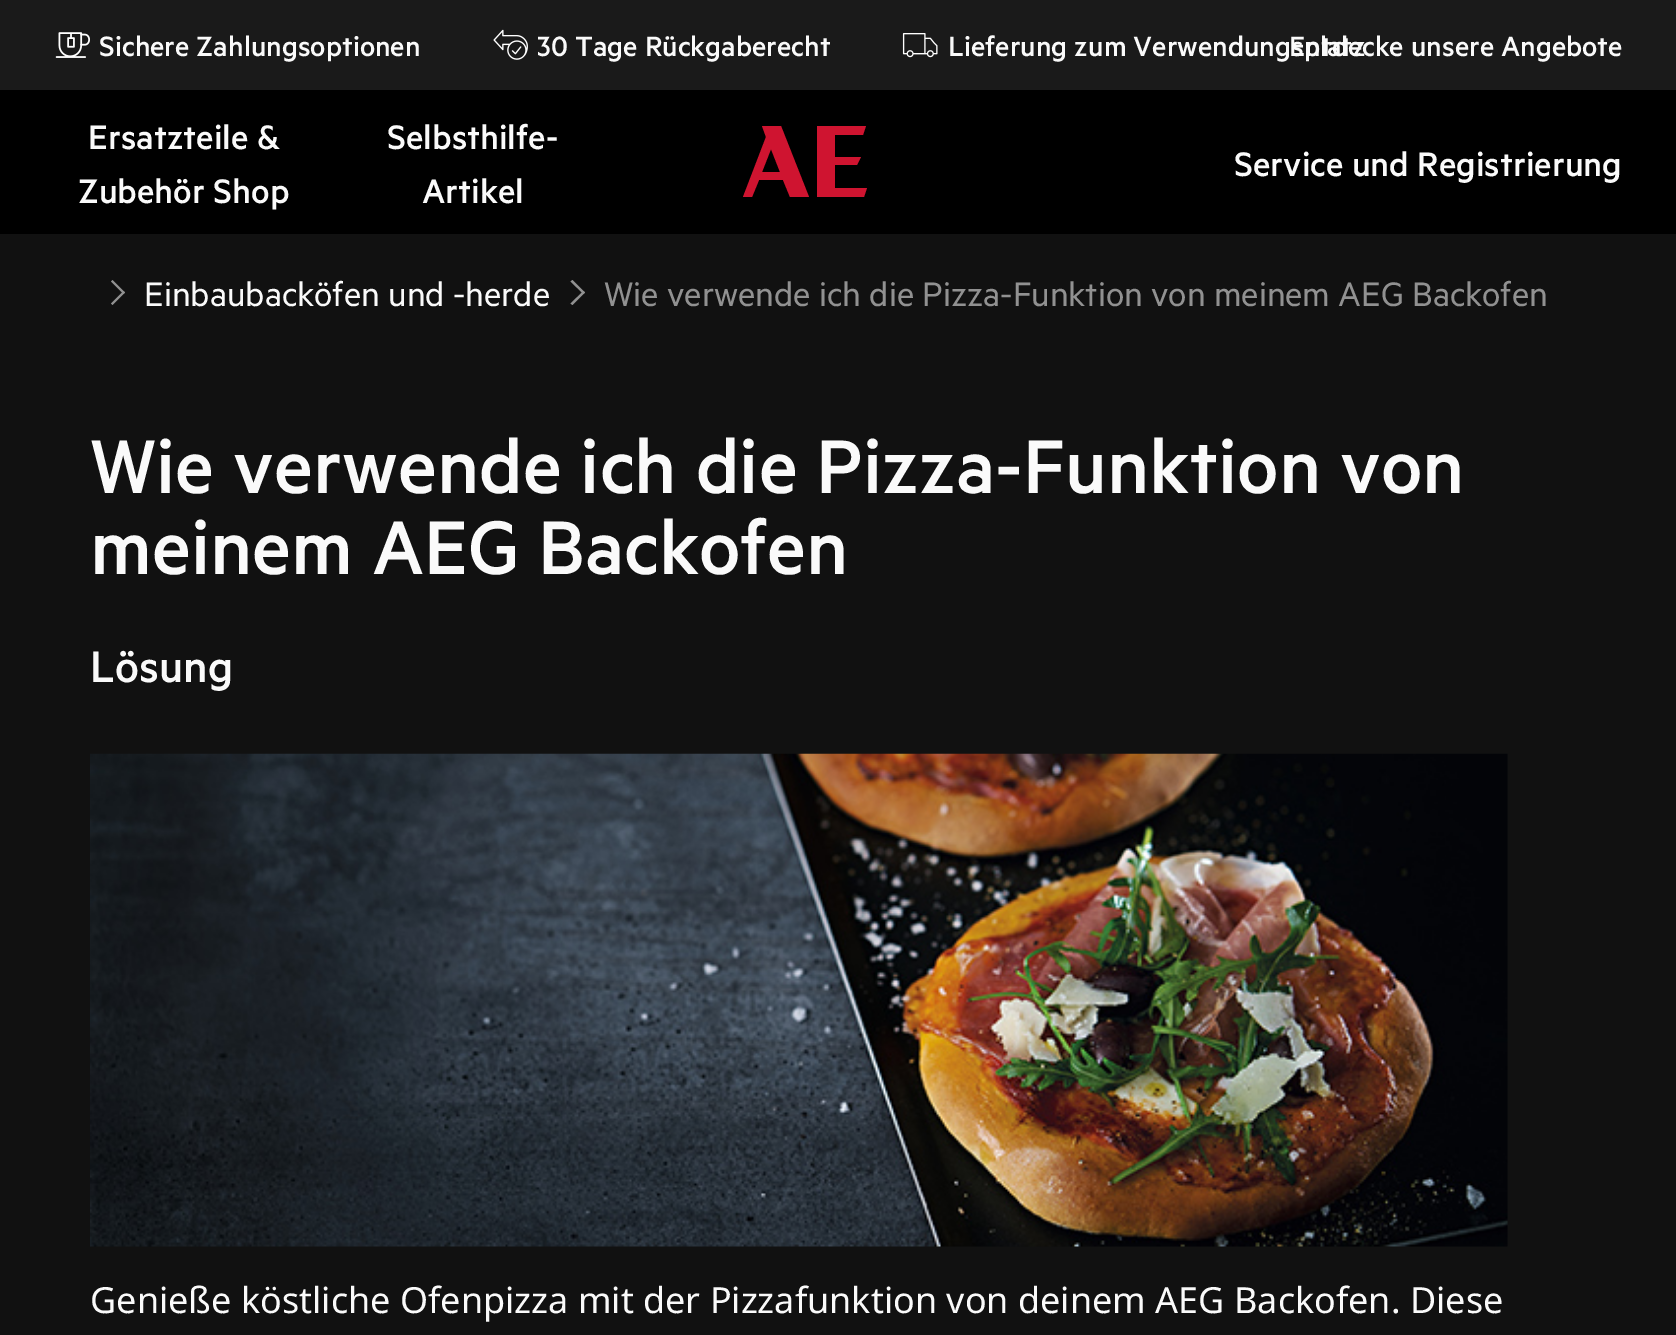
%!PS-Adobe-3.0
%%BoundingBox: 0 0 1676 1335
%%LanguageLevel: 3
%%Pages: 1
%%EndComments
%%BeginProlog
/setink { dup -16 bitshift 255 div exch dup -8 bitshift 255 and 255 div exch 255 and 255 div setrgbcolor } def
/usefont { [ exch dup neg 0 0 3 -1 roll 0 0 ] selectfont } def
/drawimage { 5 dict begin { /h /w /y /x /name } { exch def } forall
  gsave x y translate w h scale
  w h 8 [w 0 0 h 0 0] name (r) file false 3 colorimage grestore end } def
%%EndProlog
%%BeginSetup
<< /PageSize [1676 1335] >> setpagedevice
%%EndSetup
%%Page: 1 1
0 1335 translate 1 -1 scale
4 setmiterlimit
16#111111 setink
0 0 1676 1335 rectfill
16#1A1A1A setink
0 0 1676 90 rectfill
(img1.raw) 55 32 35 26 drawimage
/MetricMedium-Medium 31.5 usefont
16#FAFAFA setink
99 56 moveto (Sichere Zahlungsoptionen) show
(img2.raw) 493 29 35 31 drawimage
537 56 moveto (30 Tage Rückgaberecht) show
(img3.raw) 902 33 36 25 drawimage
948 56 moveto (Lieferung zum Verwendungsplatz) show
1289 56 moveto (Entdecke unsere Angebote) show
16#000000 setink
0 90 1676 144 rectfill
/MetricMedium-Medium 38.25 usefont
16#FAFAFA setink
[
    [(Ersatzteile &) 88 149]
    [(Zubehör Shop) 78 203]
    [(Selbsthilfe-) 387 149]
    [(Artikel) 422 203]
] { aload pop moveto show } forall
16#CF1430 setink
762 126 moveto 766 137 lineto 743 197 lineto 752 197 lineto 759 180 lineto 783 180 lineto 790 197 lineto 809 197 lineto 781 126 lineto closepath 762 172 moveto 771 149 lineto 780 172 lineto closepath 835 165 moveto 857 165 lineto 861 157 lineto 835 157 lineto 835 135 lineto 863 135 lineto 866 126 lineto 817 126 lineto 817 197 lineto 864 197 lineto 867 188 lineto 835 188 lineto closepath fill
16#FAFAFA setink
1234 176 moveto (Service und Registrierung) show
16#919191 setink
112.5 280 moveto 125 292.5 lineto 123.5 294 lineto 111 281.5 lineto closepath fill
123.5 291 moveto 125 292.5 lineto 112.5 305 lineto 111 303.5 lineto closepath fill
/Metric-Regular 38.25 usefont
16#FAFAFA setink
144 306 moveto (Einbaubacköfen und -herde) show
16#919191 setink
572.5 280 moveto 585 292.5 lineto 583.5 294 lineto 570.5 281.5 lineto closepath fill
583.5 291 moveto 585 292.5 lineto 572.5 305 lineto 570.5 303.5 lineto closepath fill
604 306 moveto (Wie verwende ich die Pizza-Funktion von meinem AEG Backofen) show
/MetricMedium-Medium 85.5 usefont
16#FAFAFA setink
90 493 moveto (Wie verwende ich die Pizza-Funktion von) show
90 574 moveto (meinem AEG Backofen) show
/MetricMedium-Medium 49.5 usefont
90 682 moveto (Lösung) show
(img4.raw) 90 753 1418 494 drawimage
/NotoSans-Regular 36 usefont
90 1313 moveto (Genieße köstliche Ofenpizza mit der Pizzafunktion von deinem AEG Backofen. Diese) show
showpage
%%EOF
